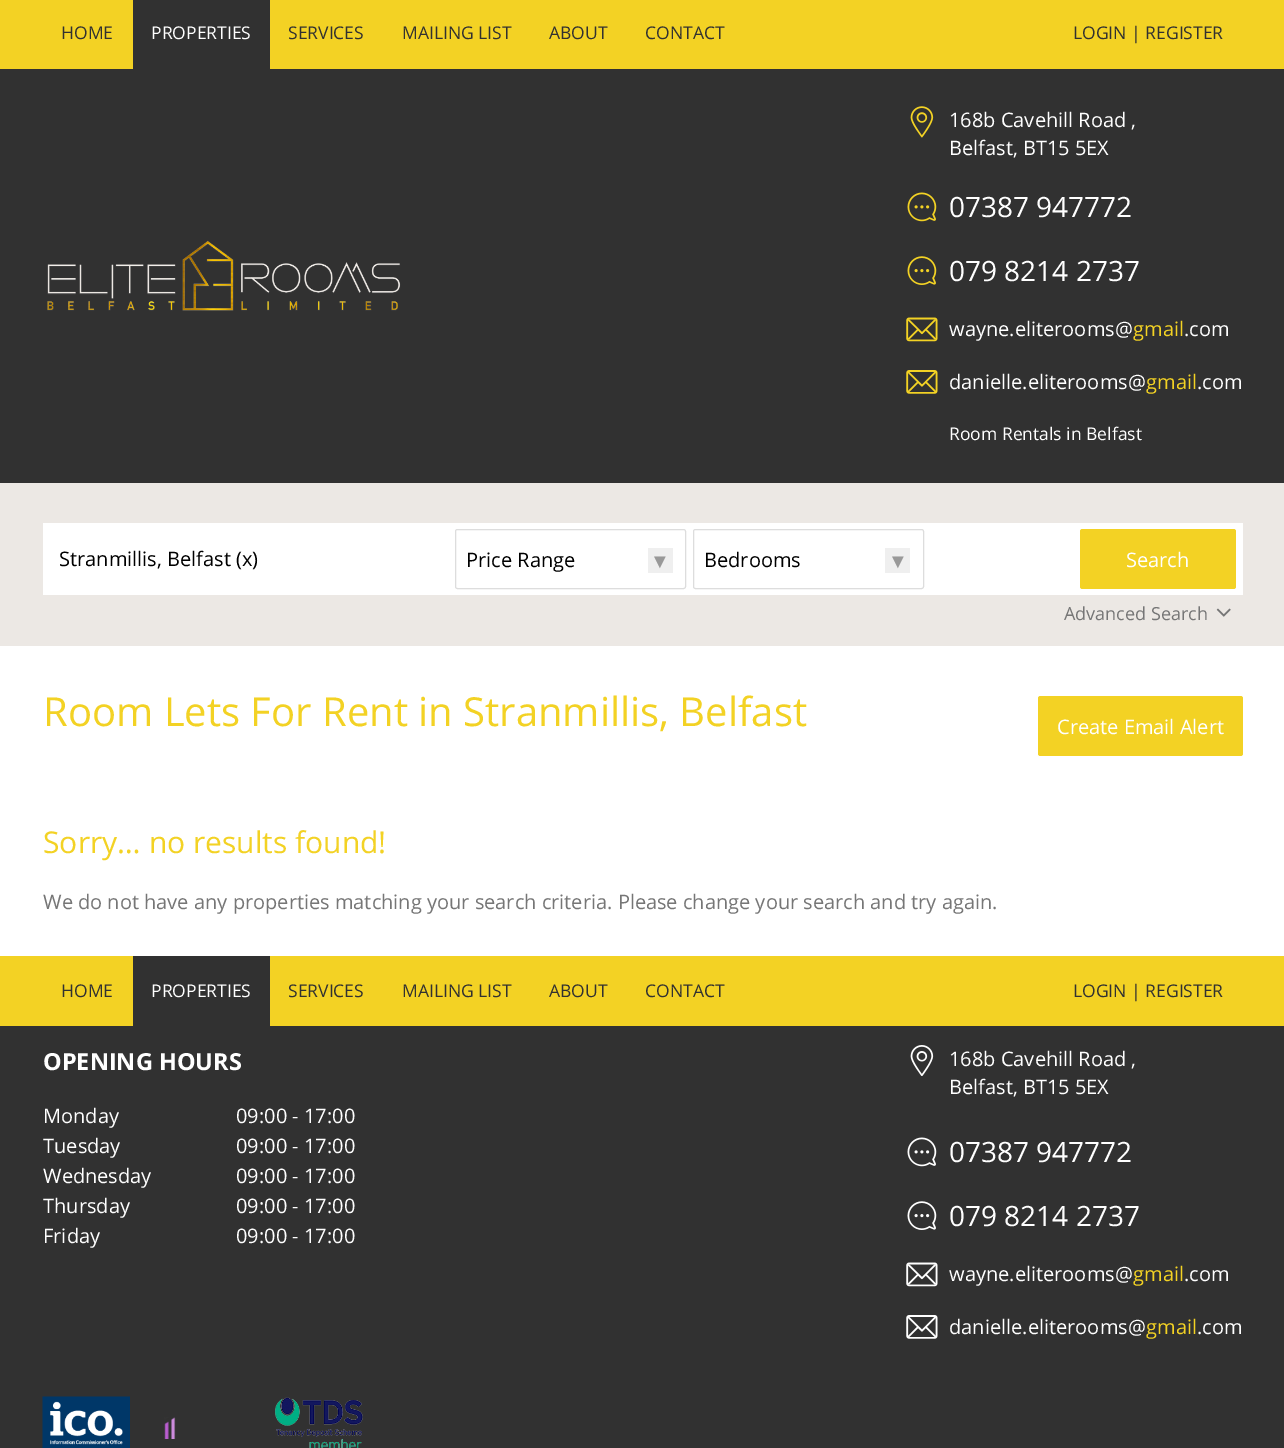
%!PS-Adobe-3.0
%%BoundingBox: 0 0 1284 1448
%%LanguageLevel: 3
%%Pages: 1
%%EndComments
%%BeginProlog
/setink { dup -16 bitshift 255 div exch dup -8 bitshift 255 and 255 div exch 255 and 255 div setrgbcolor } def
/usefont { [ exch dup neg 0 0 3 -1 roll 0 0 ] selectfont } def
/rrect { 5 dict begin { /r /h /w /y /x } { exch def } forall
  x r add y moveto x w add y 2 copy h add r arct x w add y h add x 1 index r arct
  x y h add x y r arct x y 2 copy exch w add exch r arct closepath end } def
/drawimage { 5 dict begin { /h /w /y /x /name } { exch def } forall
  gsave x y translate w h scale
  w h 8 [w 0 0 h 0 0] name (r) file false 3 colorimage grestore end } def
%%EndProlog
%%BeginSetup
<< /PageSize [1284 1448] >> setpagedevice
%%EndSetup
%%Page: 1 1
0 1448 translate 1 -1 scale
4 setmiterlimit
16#FFFFFF setink
0 0 1284 1448 rectfill
16#F3D224 setink
0 0 1284 69 rectfill
/OpenSans-Regular 17.5 usefont
16#313131 setink
61 39 moveto (HOME) show
133 0 137 69 rectfill
16#FFFFFF setink
151 39 moveto (PROPERTIES) show
16#313131 setink
[
    [(SERVICES) 288 39]
    [(MAILING LIST) 402 39]
    [(ABOUT) 549 39]
    [(CONTACT) 645 39]
    [(LOGIN | REGISTER) 1073 39]
] { aload pop moveto show } forall
0 69 1284 414 rectfill
(img1.raw) 47 240 354 71 drawimage
(img2.raw) 910 106 24 32 drawimage
/OpenSans-Regular 20 usefont
16#FFFFFF setink
949 127 moveto (168b Cavehill Road ,) show
949 155 moveto (Belfast, BT15 5EX) show
(img3.raw) 907 192 30 30 drawimage
/OpenSans-Regular 28 usefont
949 217 moveto (07387 947772) show
(img4.raw) 907 256 30 29 drawimage
949 281 moveto (079 8214 2737) show
(img5.raw) 906 317 32 25 drawimage
/OpenSans-Regular 20 usefont
949 336 moveto (wayne.eliterooms@) show
16#F3D224 setink
1133 336 moveto (gmail) show
16#FFFFFF setink
1184 336 moveto (.com) show
(img6.raw) 906 370 32 24 drawimage
949 389 moveto (danielle.eliterooms@) show
16#F3D224 setink
1146 389 moveto (gmail) show
16#FFFFFF setink
1197 389 moveto (.com) show
/OpenSans-Regular 17.5 usefont
949 440 moveto (Room Rentals in Belfast) show
16#ECE8E4 setink
0 483 1284 163 rectfill
16#FFFFFF setink
43 523 1200 72 rectfill
/OpenSans-Regular 20 usefont
16#000000 setink
59 566 moveto (Stranmillis, Belfast \(x\)) show
16#DDDDDD setink
455.5 529.5 230 59 2 rrect stroke
16#000000 setink
466 567 moveto (Price Range) show
16#EFEFEF setink
648 548 25 25 rectfill
/LiberationSans-Regular 20 usefont
16#999999 setink
650 568 moveto (▼) show
16#DDDDDD setink
693.5 529.5 230 59 2 rrect stroke
/OpenSans-Regular 20 usefont
16#000000 setink
704 567 moveto (Bedrooms) show
16#EFEFEF setink
885 548 25 25 rectfill
/LiberationSans-Regular 20 usefont
16#999999 setink
888 568 moveto (▼) show
16#F3D224 setink
1080 529 156 60 2.5 rrect fill
/OpenSans-Regular 20 usefont
16#FFFFFF setink
1126 567 moveto (Search) show
/OpenSans-Regular 18 usefont
16#767676 setink
1064 620 moveto (Advanced Search) show
(img7.raw) 1216 608 15 9 drawimage
/OpenSans-Regular 40 usefont
16#F3D224 setink
43 726 moveto (Room Lets For Rent in Stranmillis, Belfast) show
1038 696 205 60 2.5 rrect fill
/OpenSans-Regular 20 usefont
16#FFFFFF setink
1057 734 moveto (Create Email Alert) show
/OpenSans-Regular 30 usefont
16#F3D224 setink
43 853 moveto (Sorry… no results found!) show
/OpenSans-Regular 20 usefont
16#767676 setink
43 909 moveto (We do not have any properties matching your search criteria. Please change your search and try again.) show
16#F3D224 setink
0 956 1284 70 rectfill
/OpenSans-Regular 17.5 usefont
16#313131 setink
61 997 moveto (HOME) show
133 956 137 70 rectfill
16#FFFFFF setink
151 997 moveto (PROPERTIES) show
16#313131 setink
[
    [(SERVICES) 288 997]
    [(MAILING LIST) 402 997]
    [(ABOUT) 549 997]
    [(CONTACT) 645 997]
    [(LOGIN | REGISTER) 1073 997]
] { aload pop moveto show } forall
0 1026 1284 422 rectfill
/OpenSans-Bold 23.5 usefont
16#FFFFFF setink
43 1070 moveto (OPENING HOURS) show
/OpenSans-Regular 20 usefont
[
    [(Monday) 43 1123]
    [(09:00 - 17:00) 236 1123]
    [(Tuesday) 43 1153]
    [(09:00 - 17:00) 236 1153]
    [(Wednesday) 43 1183]
    [(09:00 - 17:00) 236 1183]
    [(Thursday) 43 1213]
    [(09:00 - 17:00) 236 1213]
    [(Friday) 43 1243]
    [(09:00 - 17:00) 236 1243]
] { aload pop moveto show } forall
(img8.raw) 910 1045 24 31 drawimage
949 1066 moveto (168b Cavehill Road ,) show
949 1094 moveto (Belfast, BT15 5EX) show
(img9.raw) 907 1137 30 30 drawimage
/OpenSans-Regular 28 usefont
949 1162 moveto (07387 947772) show
(img10.raw) 907 1201 30 29 drawimage
949 1226 moveto (079 8214 2737) show
(img11.raw) 906 1262 32 25 drawimage
/OpenSans-Regular 20 usefont
949 1281 moveto (wayne.eliterooms@) show
16#F3D224 setink
1133 1281 moveto (gmail) show
16#FFFFFF setink
1184 1281 moveto (.com) show
(img12.raw) 906 1315 32 24 drawimage
949 1334 moveto (danielle.eliterooms@) show
16#F3D224 setink
1146 1334 moveto (gmail) show
16#FFFFFF setink
1197 1334 moveto (.com) show
(img13.raw) 42 1396 88 52 drawimage
(img14.raw) 164 1417 12 22 drawimage
(img15.raw) 275 1397 88 51 drawimage
showpage
%%EOF
